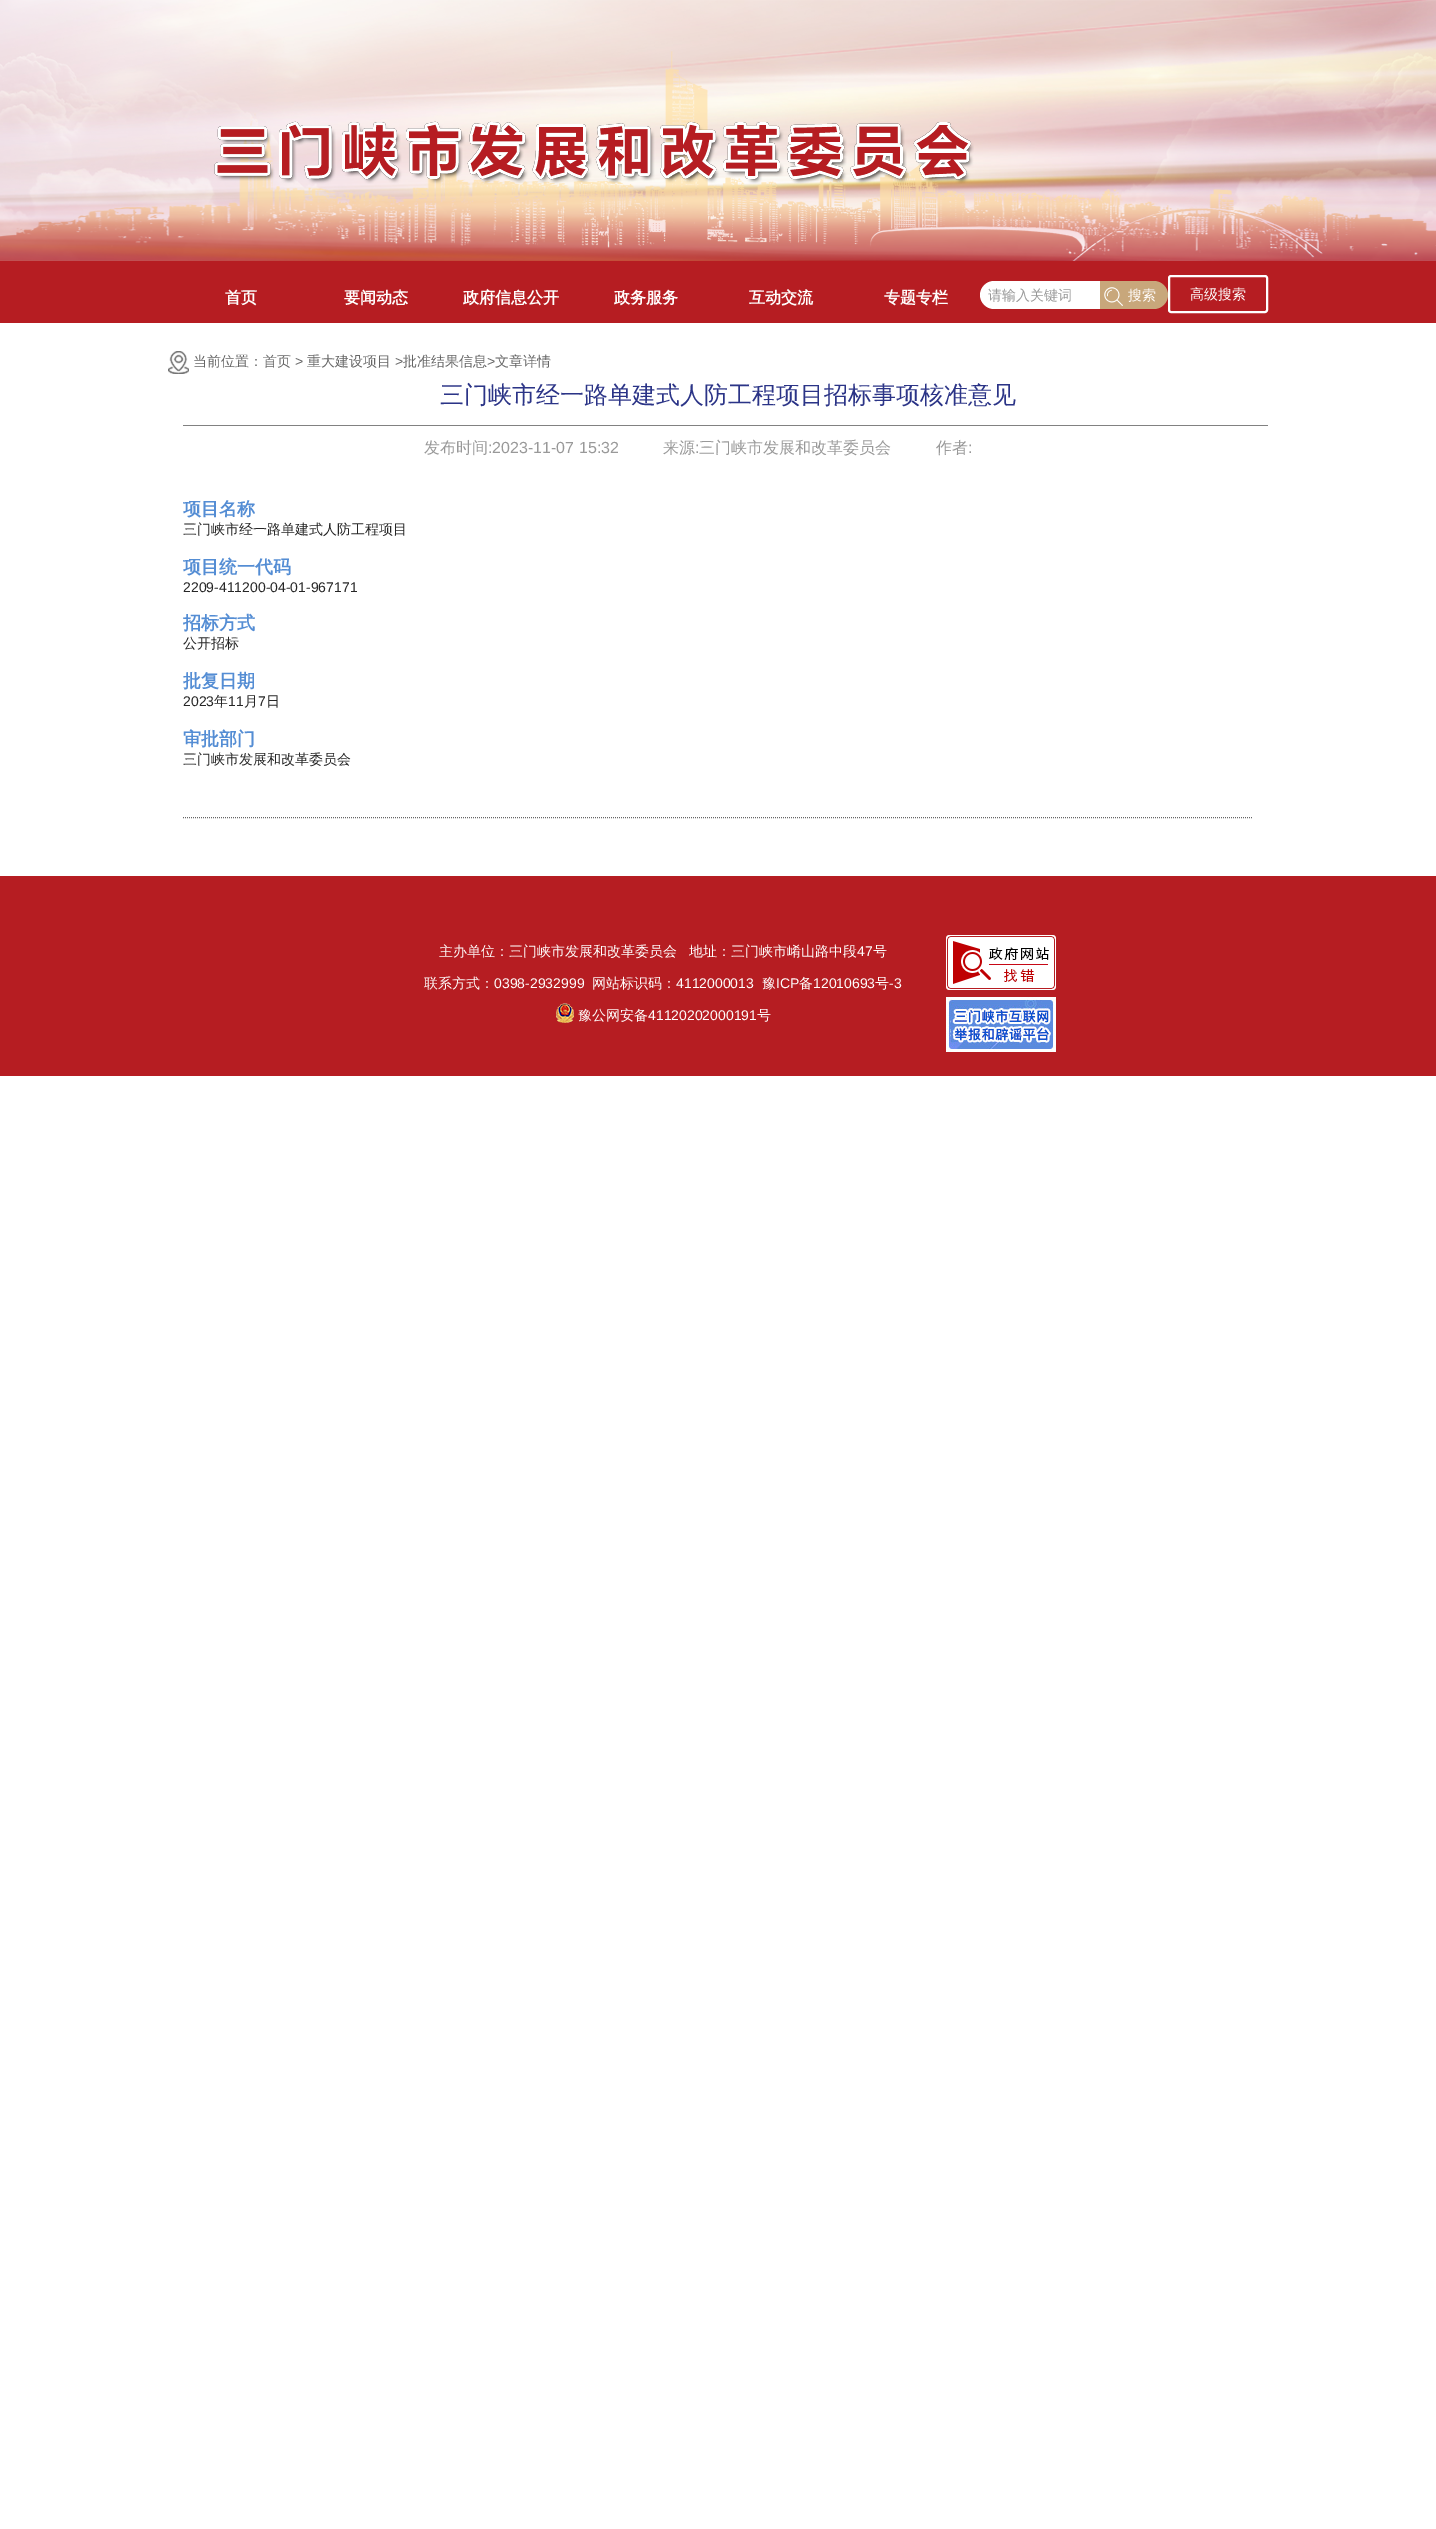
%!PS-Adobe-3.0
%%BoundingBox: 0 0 1436 2529
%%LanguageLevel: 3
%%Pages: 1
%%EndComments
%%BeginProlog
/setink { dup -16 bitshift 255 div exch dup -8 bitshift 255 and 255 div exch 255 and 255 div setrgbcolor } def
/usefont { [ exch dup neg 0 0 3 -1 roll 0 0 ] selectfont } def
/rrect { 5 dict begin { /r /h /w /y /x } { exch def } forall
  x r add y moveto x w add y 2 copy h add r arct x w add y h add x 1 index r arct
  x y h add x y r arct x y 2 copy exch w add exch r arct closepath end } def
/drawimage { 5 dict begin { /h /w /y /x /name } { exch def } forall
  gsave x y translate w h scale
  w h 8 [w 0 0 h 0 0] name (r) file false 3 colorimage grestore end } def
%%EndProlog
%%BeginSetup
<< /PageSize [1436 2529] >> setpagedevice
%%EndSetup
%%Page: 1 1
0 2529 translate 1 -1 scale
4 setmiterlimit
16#FFFFFF setink
0 0 1436 2529 rectfill
(img1.raw) 0 0 1436 261 drawimage
(img2.raw) 214 121 760 63 drawimage
16#B61D22 setink
0 261 1436 62 rectfill
/WenQuanYiZenHei-Bold 16 usefont
16#FFFDFC setink
[
    [(首页) 225 303]
    [(要闻动态) 344 303]
    [(政府信息公开) 463 303]
    [(政务服务) 614 303]
    [(互动交流) 749 303]
    [(专题专栏) 884 303]
] { aload pop moveto show } forall
16#FFFFFF setink
994 281 moveto 1100 281 lineto 1100 309 lineto 994 309 lineto 986.5 309 980 302.5 980 295 curveto 980 287.5 986.5 281 994 281 curveto closepath fill
/WenQuanYiZenHei-Medium 14 usefont
16#999999 setink
988 300 moveto (请输入关键词) show
16#C8A77B setink
1100 281 moveto 1154 281 lineto 1161.5 281 1168 287.5 1168 295 curveto 1168 302.5 1161.5 309 1154 309 curveto 1100 309 lineto closepath fill
(img3.raw) 1104 287 19 19 drawimage
16#FFFDFC setink
1128 300 moveto (搜索) show
16#FFFFFF setink
2 setlinewidth
1169 276 98 36 2 rrect stroke
16#FFFDFC setink
1190 299 moveto (高级搜索) show
(img4.raw) 168 351 21 23 drawimage
16#666666 setink
193 366 moveto (当前位置：首页) show
/LiberationSans-Regular 14 usefont
295 366 moveto (>) show
/WenQuanYiZenHei-Medium 14 usefont
307 366 moveto (重大建设项目) show
/LiberationSans-Regular 14 usefont
395 366 moveto (>) show
/WenQuanYiZenHei-Medium 14 usefont
403 366 moveto (批准结果信息) show
/LiberationSans-Regular 14 usefont
487 366 moveto (>) show
/WenQuanYiZenHei-Medium 14 usefont
495 366 moveto (文章详情) show
16#818181 setink
183 425 1085 1 rectfill
/WenQuanYiZenHei-Medium 24 usefont
16#2B3487 setink
440 403 moveto (三门峡市经一路单建式人防工程项目招标事项核准意见) show
/WenQuanYiZenHei-Medium 16 usefont
16#999999 setink
424 453 moveto (发布时间) show
/LiberationSans-Regular 16 usefont
488 453 moveto (:2023-11-07 15:32) show
/WenQuanYiZenHei-Medium 16 usefont
663 453 moveto (来源) show
/LiberationSans-Regular 16 usefont
695 453 moveto (:) show
/WenQuanYiZenHei-Medium 16 usefont
699 453 moveto (三门峡市发展和改革委员会) show
936 453 moveto (作者) show
/LiberationSans-Regular 16 usefont
968 453 moveto (:) show
16#666666 setink
1 setlinewidth
[1 1] 0 setdash
183 817.5 moveto 1253 817.5 lineto stroke
/WenQuanYiZenHei-Bold 18 usefont
16#548DD4 setink
183 515 moveto (项目名称) show
/WenQuanYiZenHei-Medium 14 usefont
16#262626 setink
183 534 moveto (三门峡市经一路单建式人防工程项目) show
/WenQuanYiZenHei-Bold 18 usefont
16#548DD4 setink
183 573 moveto (项目统一代码) show
/LiberationSans-Regular 14 usefont
16#262626 setink
183 592 moveto (2209-411200-04-01-967171) show
/WenQuanYiZenHei-Bold 18 usefont
16#548DD4 setink
183 629 moveto (招标方式) show
/WenQuanYiZenHei-Medium 14 usefont
16#262626 setink
183 648 moveto (公开招标) show
/WenQuanYiZenHei-Bold 18 usefont
16#548DD4 setink
183 687 moveto (批复日期) show
/LiberationSans-Regular 14 usefont
16#262626 setink
183 706 moveto (2023) show
/WenQuanYiZenHei-Medium 14 usefont
214 706 moveto (年) show
/LiberationSans-Regular 14 usefont
228 706 moveto (11) show
/WenQuanYiZenHei-Medium 14 usefont
244 706 moveto (月) show
/LiberationSans-Regular 14 usefont
258 706 moveto (7) show
/WenQuanYiZenHei-Medium 14 usefont
266 706 moveto (日) show
/WenQuanYiZenHei-Bold 18 usefont
16#548DD4 setink
183 745 moveto (审批部门) show
/WenQuanYiZenHei-Medium 14 usefont
16#262626 setink
183 764 moveto (三门峡市发展和改革委员会) show
16#B61D22 setink
0 876 1436 200 rectfill
16#FFFDFC setink
439 956 moveto (主办单位：三门峡市发展和改革委员会) show
689 956 moveto (地址：三门峡市崤山路中段) show
/LiberationSans-Regular 14 usefont
857 956 moveto (47) show
/WenQuanYiZenHei-Medium 14 usefont
873 956 moveto (号) show
424 988 moveto (联系方式：) show
/LiberationSans-Regular 14 usefont
494 988 moveto (0398-2932999) show
/WenQuanYiZenHei-Medium 14 usefont
592 988 moveto (网站标识码：) show
/LiberationSans-Regular 14 usefont
676 988 moveto (4112000013) show
/WenQuanYiZenHei-Medium 14 usefont
762 988 moveto (豫) show
/LiberationSans-Regular 14 usefont
776 988 moveto (ICP) show
/WenQuanYiZenHei-Medium 14 usefont
799 988 moveto (备) show
/LiberationSans-Regular 14 usefont
813 988 moveto (12010693) show
/WenQuanYiZenHei-Medium 14 usefont
875 988 moveto (号) show
/LiberationSans-Regular 14 usefont
889 988 moveto (-3) show
(img5.raw) 556 1003 18 20 drawimage
/WenQuanYiZenHei-Medium 14 usefont
578 1020 moveto (豫公网安备) show
/LiberationSans-Regular 14 usefont
648 1020 moveto (41120202000191) show
/WenQuanYiZenHei-Medium 14 usefont
757 1020 moveto (号) show
(img6.raw) 946 935 110 55 drawimage
(img7.raw) 946 997 110 55 drawimage
showpage
%%EOF
